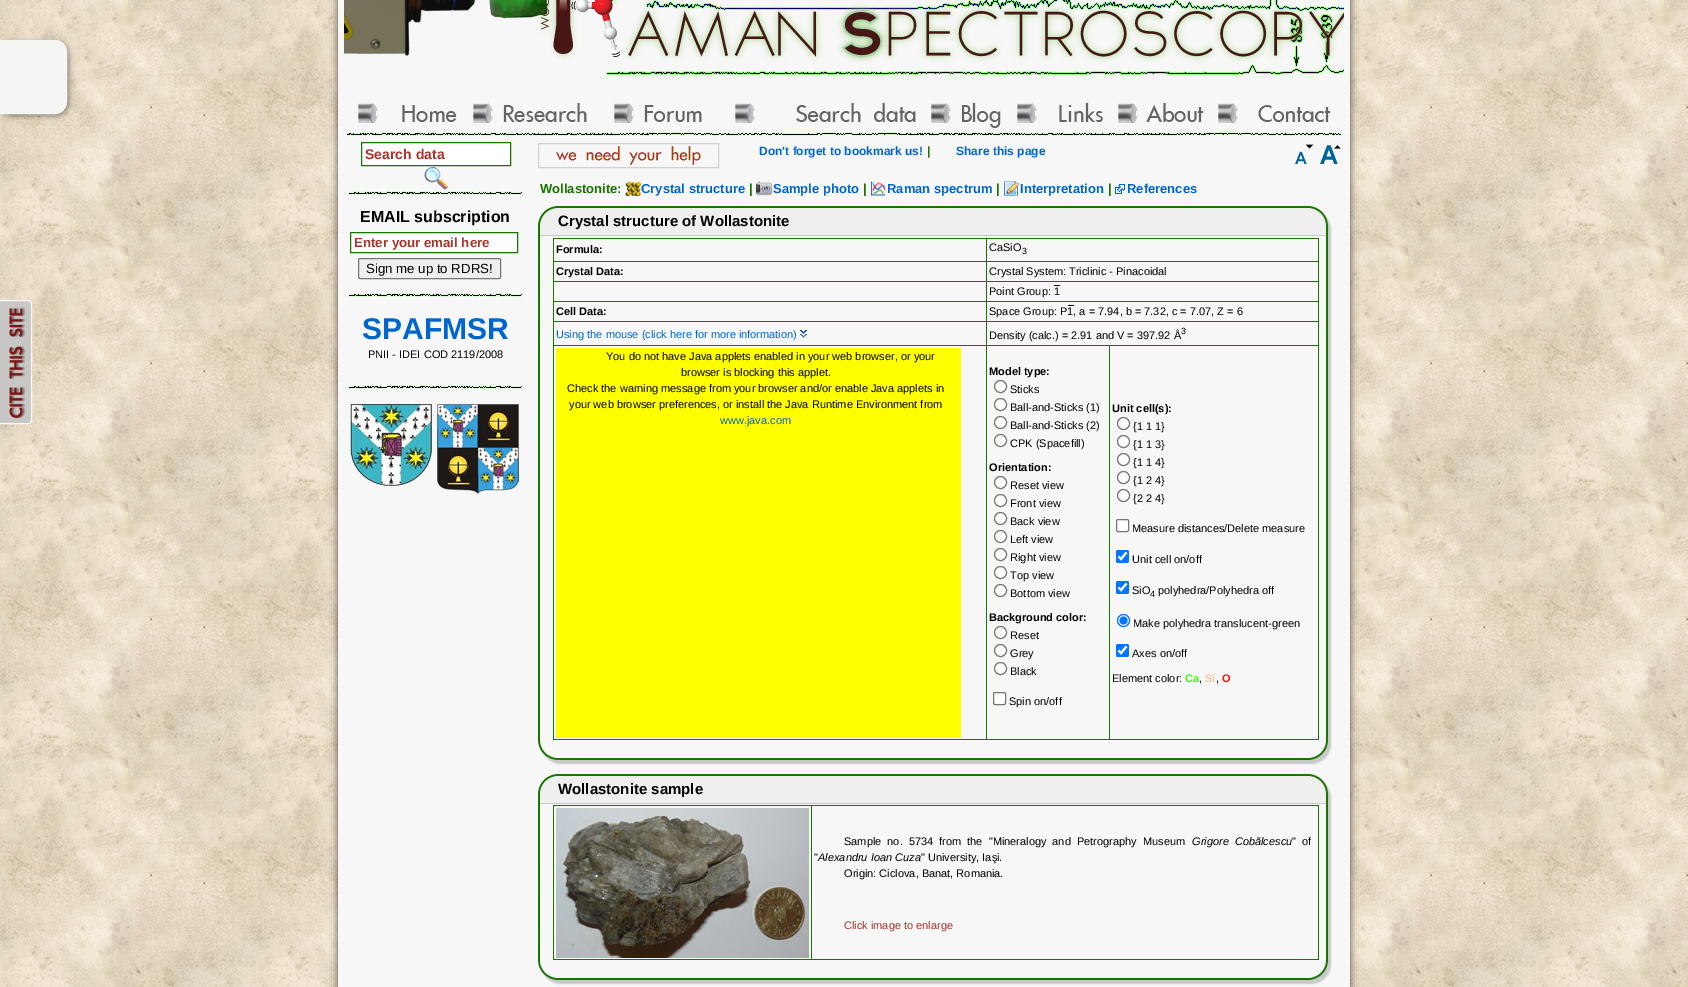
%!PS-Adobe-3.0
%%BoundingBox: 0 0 1688 987
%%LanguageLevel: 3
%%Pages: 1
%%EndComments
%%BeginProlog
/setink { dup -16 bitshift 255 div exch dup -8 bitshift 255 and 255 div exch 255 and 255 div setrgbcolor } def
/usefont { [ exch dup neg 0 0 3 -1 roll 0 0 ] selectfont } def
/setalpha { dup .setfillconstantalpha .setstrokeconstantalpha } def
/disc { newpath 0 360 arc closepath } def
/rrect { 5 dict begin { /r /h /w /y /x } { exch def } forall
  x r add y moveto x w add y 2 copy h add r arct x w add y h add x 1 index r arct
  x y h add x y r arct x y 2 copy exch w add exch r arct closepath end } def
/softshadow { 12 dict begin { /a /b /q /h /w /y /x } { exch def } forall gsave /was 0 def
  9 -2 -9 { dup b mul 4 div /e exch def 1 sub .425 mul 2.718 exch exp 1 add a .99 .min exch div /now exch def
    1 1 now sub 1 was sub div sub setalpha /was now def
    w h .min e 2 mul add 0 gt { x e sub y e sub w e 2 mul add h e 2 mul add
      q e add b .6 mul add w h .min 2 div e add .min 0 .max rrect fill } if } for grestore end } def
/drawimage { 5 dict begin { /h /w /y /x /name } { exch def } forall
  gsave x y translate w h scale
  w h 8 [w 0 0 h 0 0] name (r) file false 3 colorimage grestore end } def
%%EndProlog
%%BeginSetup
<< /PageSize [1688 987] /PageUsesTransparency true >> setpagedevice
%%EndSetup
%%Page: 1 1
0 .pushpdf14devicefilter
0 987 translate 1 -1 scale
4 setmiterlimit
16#FFFFFF setink
0 0 1688 987 rectfill
(img1.raw) 0 0 1688 987 drawimage
16#000000 setink
338 -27 1012 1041 15 4 0.7 softshadow
16#F7F7F7 setink
338 0 1012 987 rectfill
16#000000 setink
-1 42 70 74 12 3 0.4 softshadow
16#F5F5F4 setink
-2.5 40.5 moveto 55 40.5 lineto 61.5 40.5 66.5 45.5 66.5 52 curveto 66.5 102 lineto 66.5 108.5 61.5 113.5 55 113.5 curveto -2.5 113.5 lineto closepath gsave fill grestore
16#F6F6F5 setink
stroke
(img2.raw) 344 0 132 63 drawimage
(img5.raw) 646 0 698 12 drawimage
(img6.raw) 606 14 738 61 drawimage
(img4.raw) 534 0 810 63 drawimage
(img3.raw) 489 0 59 19 drawimage
(img7.raw) 358 102 1 22 drawimage
(img8.raw) 359 102 99 22 drawimage
(img9.raw) 473 100 2 24 drawimage
(img10.raw) 475 100 114 24 drawimage
(img11.raw) 614 102 16 22 drawimage
(img12.raw) 630 102 74 22 drawimage
(img13.raw) 735 100 1 24 drawimage
(img14.raw) 736 100 182 24 drawimage
(img15.raw) 931 100 16 30 drawimage
(img16.raw) 947 100 56 30 drawimage
(img17.raw) 1017 100 1 24 drawimage
(img18.raw) 1018 100 87 24 drawimage
(img19.raw) 1118 100 1 24 drawimage
(img20.raw) 1119 100 86 24 drawimage
(img21.raw) 1218 102 1 22 drawimage
(img22.raw) 1219 102 113 22 drawimage
(img23.raw) 347 132 994 4 drawimage
0.9 setalpha
16#C6C6C6 setink
-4 300 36 124 4 rrect fill
1 setalpha
(img24.raw) 9 307 17 112 drawimage
0.9 setalpha
16#FFFFFF setink
-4.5 300.5 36 123 3.5 rrect stroke
1 setalpha
361.5 142.5 moveto 510.5 142.5 lineto 510.5 165.5 lineto 361.5 165.5 lineto closepath gsave fill grestore
16#1A7400 setink
stroke
/LiberationSans-Bold 14 usefont
16#A7332A setink
365 159 moveto (Search data) show
(img25.raw) 424 167 24 23 drawimage
(img26.raw) 349 191 173 4 drawimage
/LiberationSans-Bold 16 usefont
16#000000 setink
360 222 moveto (EMAIL subscription) show
16#FFFFFF setink
350.5 232.5 moveto 517.5 232.5 lineto 517.5 252.5 lineto 350.5 252.5 lineto closepath gsave fill grestore
16#1A7400 setink
stroke
/LiberationSans-Bold 13.25 usefont
16#A7332A setink
354 247 moveto (Enter your email here) show
16#EFEFEF setink
358.5 258.5 142 20 1.5 rrect gsave fill grestore
16#767676 setink
stroke
/LiberationSans-Regular 13.25 usefont
16#000000 setink
366 273 moveto (Sign me up to RDRS!) show
(img26.raw) 349 293 173 4 drawimage
/LiberationSans-Bold 30 usefont
16#0066CC setink
362 339 moveto (SPAFMSR) show
/LiberationSans-Regular 11 usefont
16#000000 setink
368 358 moveto (PNII - IDEI COD 2119/2008) show
(img26.raw) 349 385 173 4 drawimage
(img27.raw) 350 404 82 82 drawimage
(img28.raw) 437 404 82 90 drawimage
(img29.raw) 556 146 145 19 drawimage
16#D1D1D1 setink
538.5 143.5 180 24 rectstroke
/LiberationSans-Bold 12 usefont
16#0066CC setink
759 155 moveto (Don't forget to bookmark us!) show
16#1A7400 setink
927 155 moveto (|) show
16#0066CC setink
956 155 moveto (Share this page) show
(img30.raw) 1295 144 19 20 drawimage
(img31.raw) 1320 145 21 19 drawimage
/LiberationSans-Bold 13 usefont
16#1A7400 setink
540 193 moveto (Wollastonite:) show
(img32.raw) 625 181 16 15 drawimage
16#0066CC setink
641 193 moveto (Crystal structure) show
16#1A7400 setink
749 193 moveto (|) show
(img33.raw) 756 181 16 15 drawimage
16#0066CC setink
773 193 moveto (Sample photo) show
16#1A7400 setink
863 193 moveto (|) show
(img34.raw) 871 181 14 15 drawimage
16#0066CC setink
887 193 moveto (Raman spectrum) show
16#1A7400 setink
996 193 moveto (|) show
(img35.raw) 1004 181 15 15 drawimage
16#0066CC setink
1020 193 moveto (Interpretation) show
16#1A7400 setink
1108 193 moveto (|) show
(img36.raw) 1115 184 10 10 drawimage
16#0066CC setink
1127 193 moveto (References) show
(img37.raw) 538 206 794 32 drawimage
/LiberationSans-Bold 15 usefont
16#000000 setink
558 226 moveto (Crystal structure of Wollastonite) show
(img38.raw) 538 238 794 502 drawimage
[
    [986 238 333 1 16#1A7400]
    [986 261 333 1 16#1A7400]
    [986 281 333 1 16#1A7400]
    [986 301 333 1 16#1A7400]
    [986 321 333 1 16#1A7400]
    [1109 345 210 1 16#1A7400]
    [1318 345 1 395 16#1A7400]
    [1109 739 210 1 16#1A7400]
    [1109 345 1 395 16#1A7400]
    [986 345 124 1 16#1A7400]
    [986 739 124 1 16#1A7400]
    [986 345 1 395 16#1A7400]
    [553 345 434 1 16#1A7400]
    [986 321 1 25 16#1A7400]
    [553 321 434 1 16#1A7400]
    [986 301 1 21 16#1A7400]
    [553 301 434 1 16#1A7400]
    [986 281 1 21 16#1A7400]
    [553 281 434 1 16#1A7400]
    [986 261 1 21 16#1A7400]
    [553 261 434 1 16#1A7400]
    [986 238 1 24 16#1A7400]
    [553 238 434 1 16#1A7400]
    [553 739 434 1 16#1A7400]
    [553 345 1 395 16#1A7400]
    [553 321 1 25 16#1A7400]
    [553 301 1 21 16#1A7400]
    [553 281 1 21 16#1A7400]
    [553 261 1 21 16#1A7400]
    [553 238 1 24 16#1A7400]
] { aload pop setink rectfill } forall
/LiberationSans-Bold 11 usefont
16#000000 setink
556 253 moveto (Formula:) show
[
    [1318 321 1 25 16#1A7400]
    [1318 301 1 21 16#1A7400]
    [1318 281 1 21 16#1A7400]
    [1318 261 1 21 16#1A7400]
    [1318 238 1 24 16#1A7400]
] { aload pop setink rectfill } forall
/LiberationSans-Regular 11 usefont
16#000000 setink
989 251 moveto (CaSiO) show
/LiberationSans-Regular 9 usefont
1022 254 moveto (3) show
/LiberationSans-Bold 11 usefont
556 275 moveto (Crystal Data:) show
/LiberationSans-Regular 11 usefont
989 275 moveto (Crystal System: Triclinic - Pinacoidal) show
1054 285 6 1 rectfill
989 295 moveto (Point Group: 1) show
/LiberationSans-Bold 11 usefont
556 315 moveto (Cell Data:) show
1068 305 6 1 rectfill
/LiberationSans-Regular 11 usefont
989 315 moveto (Space Group: P1, a = 7.94, b = 7.32, c = 7.07, Z = 6) show
16#0066CC setink
556 338 moveto (Using the mouse \(click here for more information\)) show
(img39.raw) 800 330 7 8 drawimage
16#000000 setink
989 339 moveto (Density \(calc.\) = 2.91 and V = 397.92 Å) show
/LiberationSans-Regular 9 usefont
1181 334 moveto (3) show
16#FFFF00 setink
556 348 405 390 rectfill
/LiberationSans-Regular 11 usefont
16#000000 setink
[
    [(You do not have Java applets enabled in your web browser, or your) 606 360]
    [(browser is blocking this applet.) 681 376]
    [(Check the warning message from your browser and/or enable Java applets in) 567 392]
    [(your web browser preferences, or install the Java Runtime Environment from) 569 408]
] { aload pop moveto show } forall
16#0066CC setink
720 424 moveto (www.java.com) show
/LiberationSans-Bold 11 usefont
16#000000 setink
989 375 moveto (Model type:) show
16#FFFFFF setink
1000.5 386.5 6 disc gsave fill grestore
16#767676 setink
stroke
/LiberationSans-Regular 11 usefont
16#000000 setink
1010 393 moveto (Sticks) show
16#FFFFFF setink
1000.5 404.5 6 disc gsave fill grestore
16#767676 setink
stroke
16#000000 setink
1010 411 moveto (Ball-and-Sticks \(1\)) show
16#FFFFFF setink
1000.5 422.5 6 disc gsave fill grestore
16#767676 setink
stroke
16#000000 setink
1010 429 moveto (Ball-and-Sticks \(2\)) show
16#FFFFFF setink
1000.5 440.5 6 disc gsave fill grestore
16#767676 setink
stroke
16#000000 setink
1010 447 moveto (CPK \(Spacefill\)) show
/LiberationSans-Bold 11 usefont
989 471 moveto (Orientation:) show
16#FFFFFF setink
1000.5 482.5 6 disc gsave fill grestore
16#767676 setink
stroke
/LiberationSans-Regular 11 usefont
16#000000 setink
1010 489 moveto (Reset view) show
16#FFFFFF setink
1000.5 500.5 6 disc gsave fill grestore
16#767676 setink
stroke
16#000000 setink
1010 507 moveto (Front view) show
16#FFFFFF setink
1000.5 518.5 6 disc gsave fill grestore
16#767676 setink
stroke
16#000000 setink
1010 525 moveto (Back view) show
16#FFFFFF setink
1000.5 536.5 6 disc gsave fill grestore
16#767676 setink
stroke
16#000000 setink
1010 543 moveto (Left view) show
16#FFFFFF setink
1000.5 554.5 6 disc gsave fill grestore
16#767676 setink
stroke
16#000000 setink
1010 561 moveto (Right view) show
16#FFFFFF setink
1000.5 572.5 6 disc gsave fill grestore
16#767676 setink
stroke
16#000000 setink
1010 579 moveto (Top view) show
16#FFFFFF setink
1000.5 590.5 6 disc gsave fill grestore
16#767676 setink
stroke
16#000000 setink
1010 597 moveto (Bottom view) show
/LiberationSans-Bold 11 usefont
989 621 moveto (Background color:) show
16#FFFFFF setink
1000.5 632.5 6 disc gsave fill grestore
16#767676 setink
stroke
/LiberationSans-Regular 11 usefont
16#000000 setink
1010 639 moveto (Reset) show
16#FFFFFF setink
1000.5 650.5 6 disc gsave fill grestore
16#767676 setink
stroke
16#000000 setink
1010 657 moveto (Grey) show
16#FFFFFF setink
1000.5 668.5 6 disc gsave fill grestore
16#767676 setink
stroke
16#000000 setink
1010 675 moveto (Black) show
16#FFFFFF setink
993.5 692.5 12 12 1.5 rrect gsave fill grestore
16#767676 setink
stroke
16#000000 setink
1009 705 moveto (Spin on/off) show
/LiberationSans-Bold 11 usefont
1112 412 moveto (Unit cell\(s\):) show
16#FFFFFF setink
1123.5 423.5 6 disc gsave fill grestore
16#767676 setink
stroke
/LiberationSans-Regular 11 usefont
16#000000 setink
1133 430 moveto ({1 1 1}) show
16#FFFFFF setink
1123.5 441.5 6 disc gsave fill grestore
16#767676 setink
stroke
16#000000 setink
1133 448 moveto ({1 1 3}) show
16#FFFFFF setink
1123.5 459.5 6 disc gsave fill grestore
16#767676 setink
stroke
16#000000 setink
1133 466 moveto ({1 1 4}) show
16#FFFFFF setink
1123.5 477.5 6 disc gsave fill grestore
16#767676 setink
stroke
16#000000 setink
1133 484 moveto ({1 2 4}) show
16#FFFFFF setink
1123.5 495.5 6 disc gsave fill grestore
16#767676 setink
stroke
16#000000 setink
1133 502 moveto ({2 2 4}) show
16#FFFFFF setink
1116.5 519.5 12 12 1.5 rrect gsave fill grestore
16#767676 setink
stroke
16#000000 setink
1132 532 moveto (Measure distances/Delete measure) show
16#0075FF setink
1116 550 13 13 2 rrect fill
16#FFFFFF setink
2.1 setlinewidth
1118.5 556.5 moveto 1121 559 lineto 1126.5 552.5 lineto stroke
16#000000 setink
1132 563 moveto (Unit cell on/off) show
16#0075FF setink
1116 581 13 13 2 rrect fill
16#FFFFFF setink
1118.5 587.5 moveto 1121 590 lineto 1126.5 583.5 lineto stroke
16#000000 setink
1132 594 moveto (SiO) show
/LiberationSans-Regular 9 usefont
1150 597 moveto (4) show
/LiberationSans-Regular 11 usefont
1158 594 moveto (polyhedra/Polyhedra off) show
16#FFFFFF setink
1123.5 620.5 6 disc gsave fill grestore
16#0075FF setink
1 setlinewidth
stroke
1123.5 620.5 4 disc fill
16#000000 setink
1133 627 moveto (Make polyhedra translucent-green) show
16#0075FF setink
1116 644 13 13 2 rrect fill
16#FFFFFF setink
2.1 setlinewidth
1118.5 650.5 moveto 1121 653 lineto 1126.5 646.5 lineto stroke
16#000000 setink
1132 657 moveto (Axes on/off) show
1112 682 moveto (Element color:) show
/LiberationSans-Bold 11 usefont
16#3DFF00 setink
1185 682 moveto (Ca) show
/LiberationSans-Regular 11 usefont
16#000000 setink
1199 682 moveto (,) show
/LiberationSans-Bold 11 usefont
16#F0C8A0 setink
1205 682 moveto (Si) show
/LiberationSans-Regular 11 usefont
16#000000 setink
1216 682 moveto (,) show
/LiberationSans-Bold 11 usefont
16#FF0D0D setink
1222 682 moveto (O) show
(img40.raw) 538 740 794 25 drawimage
(img37.raw) 538 774 794 32 drawimage
/LiberationSans-Bold 15 usefont
16#000000 setink
558 794 moveto (Wollastonite sample) show
(img41.raw) 538 806 794 154 drawimage
[
    [811 805 508 1 16#1A7400]
    [1318 805 1 155 16#1A7400]
    [811 959 508 1 16#1A7400]
    [811 805 1 155 16#1A7400]
    [553 805 259 1 16#1A7400]
    [553 959 259 1 16#1A7400]
    [553 805 1 155 16#1A7400]
] { aload pop setink rectfill } forall
(img42.raw) 556 808 253 150 drawimage
/LiberationSans-Regular 11 usefont
16#000000 setink
844 845 moveto 3 0 32 (Sample no. 5734 from the "Mineralogy and Petrography Museum) widthshow
/LiberationSans-Italic 11 usefont
1192 845 moveto 3 0 32 (Grigore Cobălcescu) widthshow
/LiberationSans-Regular 11 usefont
1292 845 moveto 3 0 32 (" of) widthshow
814 861 moveto (") show
/LiberationSans-Italic 11 usefont
818 861 moveto (Alexandru Ioan Cuza) show
/LiberationSans-Regular 11 usefont
921 861 moveto (" University, Iaşi.) show
844 877 moveto (Origin: Ciclova, Banat, Romania.) show
16#A7332A setink
844 929 moveto (Click image to enlarge) show
(img40.raw) 538 960 794 25 drawimage
.poppdf14devicefilter showpage
%%EOF
